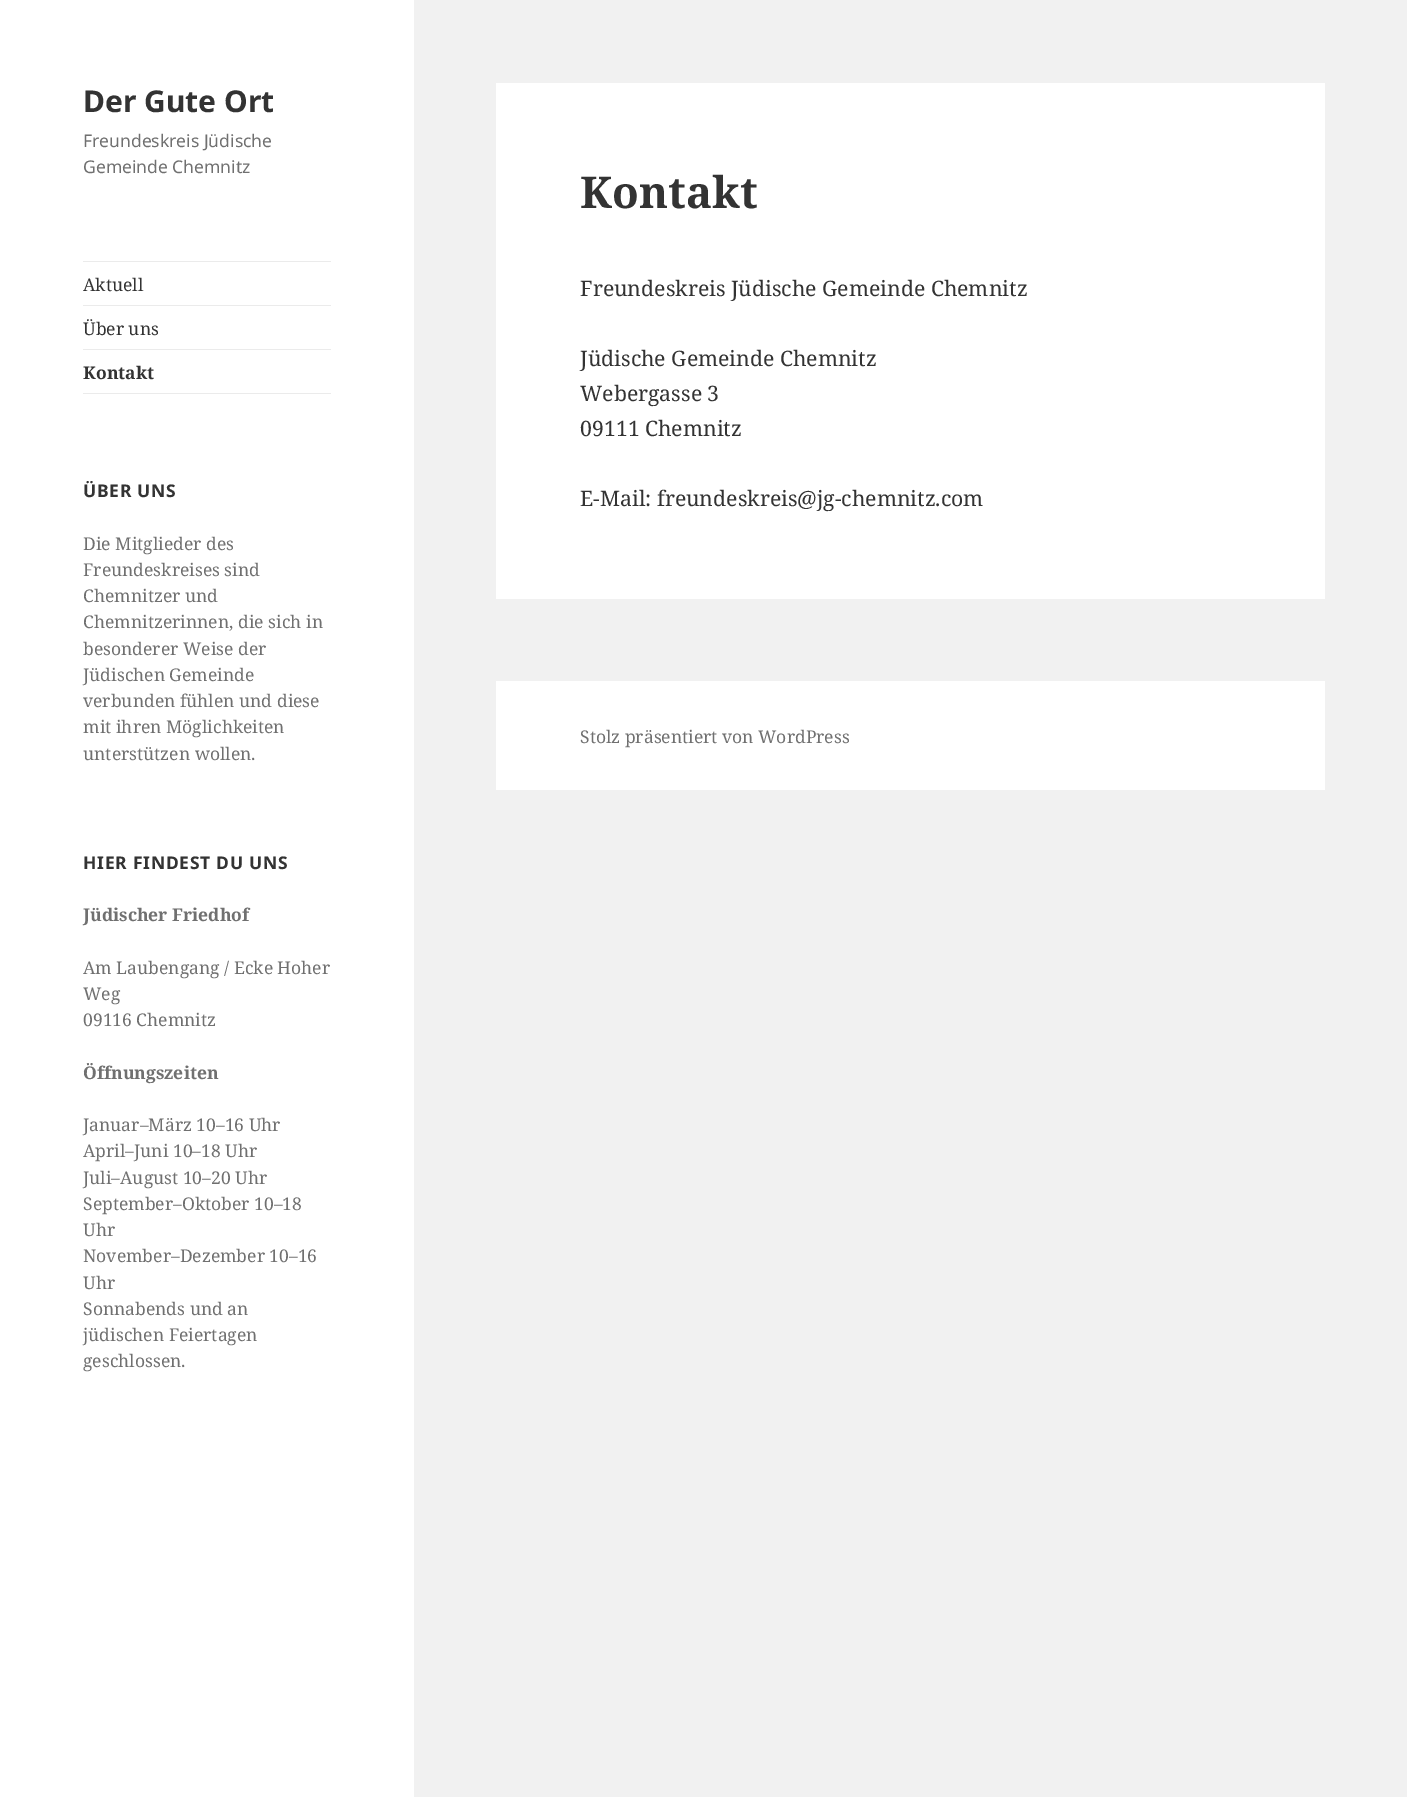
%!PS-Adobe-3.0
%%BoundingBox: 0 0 1407 1797
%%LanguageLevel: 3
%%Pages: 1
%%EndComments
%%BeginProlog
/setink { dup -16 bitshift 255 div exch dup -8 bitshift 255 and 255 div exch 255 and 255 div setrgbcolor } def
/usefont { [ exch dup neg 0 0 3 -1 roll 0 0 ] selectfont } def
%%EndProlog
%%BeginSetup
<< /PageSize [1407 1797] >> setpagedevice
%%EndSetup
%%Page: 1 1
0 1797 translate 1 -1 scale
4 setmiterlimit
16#F1F1F1 setink
0 0 1407 1797 rectfill
16#FFFFFF setink
0 0 414 1797 rectfill
/NotoSans-Bold 30 usefont
16#333333 setink
83 112 moveto (Der Gute Ort) show
/NotoSans-Regular 17.5 usefont
16#707070 setink
83 147 moveto (Freundeskreis Jüdische) show
83 173 moveto (Gemeinde Chemnitz) show
16#EBEBEB setink
83 261 248 1 rectfill
83 393 248 1 rectfill
/NotoSerif-Regular 17.5 usefont
16#333333 setink
83 291 moveto (Aktuell) show
16#EBEBEB setink
83 305 248 1 rectfill
16#333333 setink
83 335 moveto (Über uns) show
16#EBEBEB setink
83 349 248 1 rectfill
/NotoSerif-Bold 17.5 usefont
16#333333 setink
83 379 moveto (Kontakt) show
/NotoSans-Bold 17.5 usefont
83 497 moveto 0.75 0 (ÜBER UNS) ashow
/NotoSerif-Regular 17.5 usefont
16#707070 setink
[
    [(Die Mitglieder des) 83 550]
    [(Freundeskreises sind) 83 576]
    [(Chemnitzer und) 83 602]
    [(Chemnitzerinnen, die sich in) 83 628]
    [(besonderer Weise der) 83 655]
    [(Jüdischen Gemeinde) 83 681]
    [(verbunden fühlen und diese) 83 707]
    [(mit ihren Möglichkeiten) 83 733]
    [(unterstützen wollen.) 83 760]
] { aload pop moveto show } forall
/NotoSans-Bold 17.5 usefont
16#333333 setink
83 869 moveto 0.75 0 (HIER FINDEST DU UNS) ashow
/NotoSerif-Bold 17.5 usefont
16#707070 setink
83 921 moveto (Jüdischer Friedhof) show
/NotoSerif-Regular 17.5 usefont
[
    [(Am Laubengang / Ecke Hoher) 83 974]
    [(Weg) 83 1000]
    [(09116 Chemnitz) 83 1026]
] { aload pop moveto show } forall
/NotoSerif-Bold 17.5 usefont
83 1079 moveto (Öffnungszeiten) show
/NotoSerif-Regular 17.5 usefont
[
    [(Januar–März 10–16 Uhr) 83 1131]
    [(April–Juni 10–18 Uhr) 83 1157]
    [(Juli–August 10–20 Uhr) 83 1184]
    [(September–Oktober 10–18) 83 1210]
    [(Uhr) 83 1236]
    [(November–Dezember 10–16) 83 1262]
    [(Uhr) 83 1289]
    [(Sonnabends und an) 83 1315]
    [(jüdischen Feiertagen) 83 1341]
    [(geschlossen.) 83 1367]
] { aload pop moveto show } forall
16#FFFFFF setink
496 83 829 516 rectfill
/NotoSerif-Bold 43.75 usefont
16#333333 setink
580 208 moveto (Kontakt) show
/NotoSerif-Regular 21.25 usefont
[
    [(Freundeskreis Jüdische Gemeinde Chemnitz) 580 296]
    [(Jüdische Gemeinde Chemnitz) 580 366]
    [(Webergasse 3) 580 401]
    [(09111 Chemnitz) 580 436]
    [(E-Mail: freundeskreis@jg-chemnitz.com) 580 506]
] { aload pop moveto show } forall
16#FFFFFF setink
496 681 829 109 rectfill
/NotoSerif-Regular 17.5 usefont
16#707070 setink
580 743 moveto (Stolz präsentiert von WordPress) show
showpage
%%EOF
